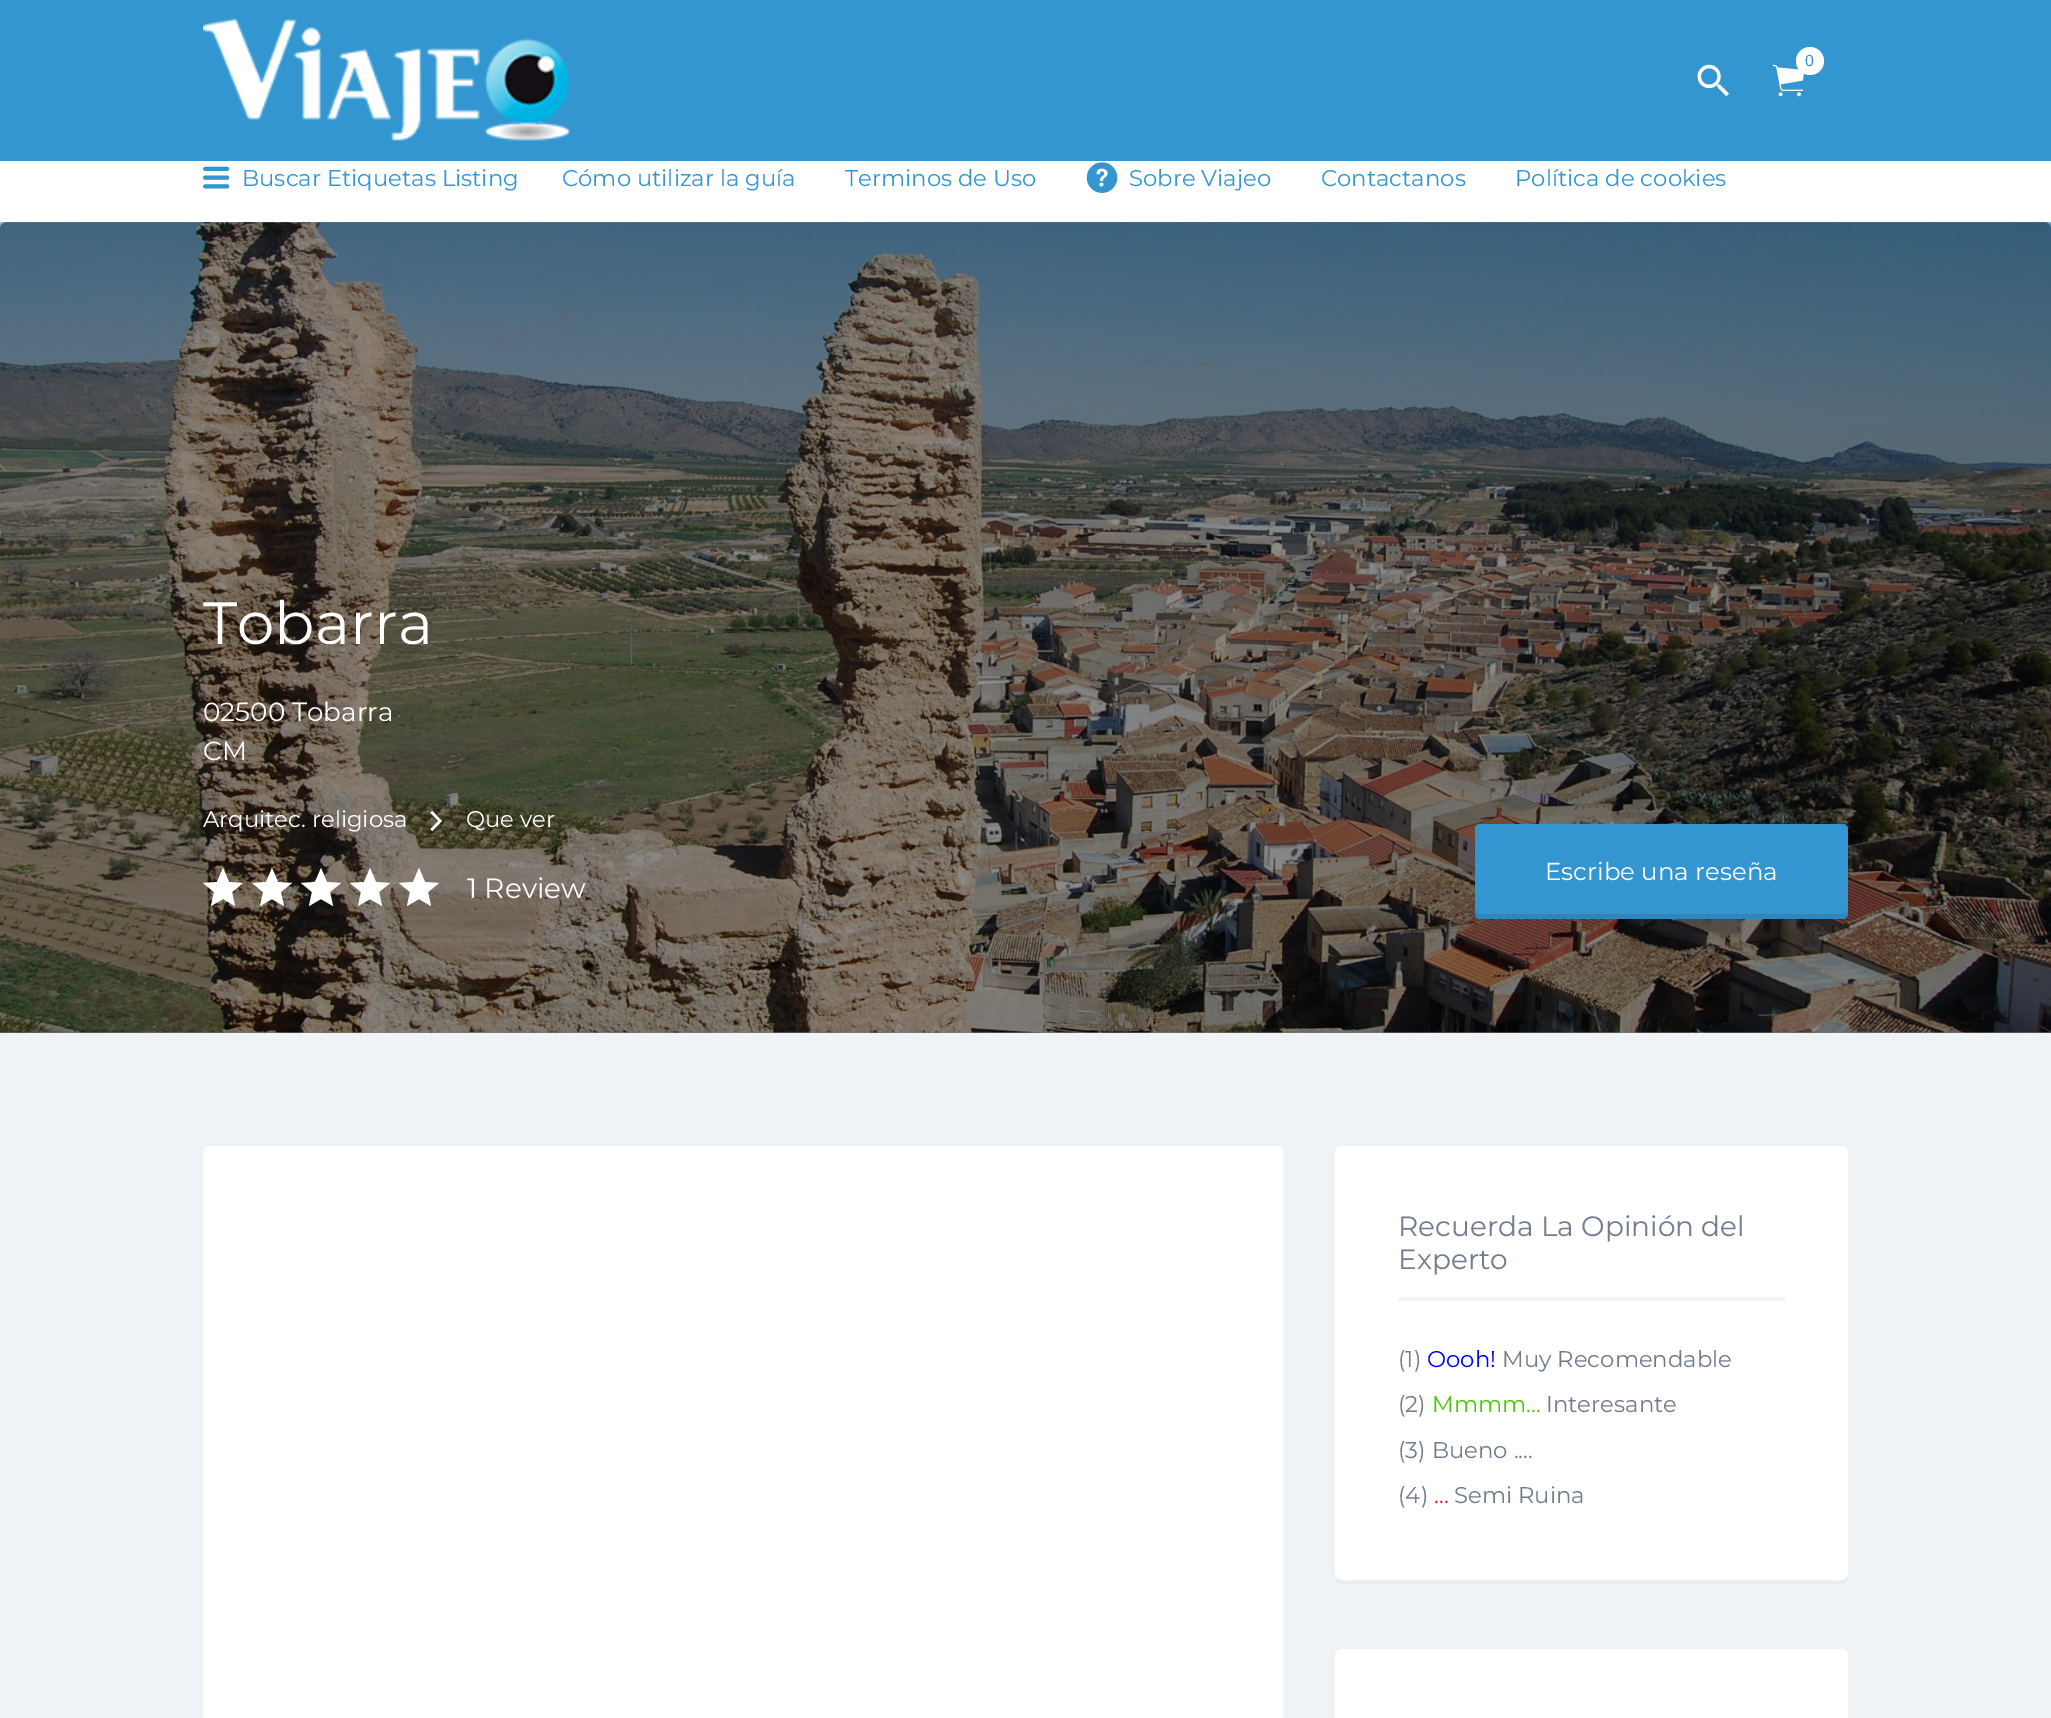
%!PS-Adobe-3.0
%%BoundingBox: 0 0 2051 1718
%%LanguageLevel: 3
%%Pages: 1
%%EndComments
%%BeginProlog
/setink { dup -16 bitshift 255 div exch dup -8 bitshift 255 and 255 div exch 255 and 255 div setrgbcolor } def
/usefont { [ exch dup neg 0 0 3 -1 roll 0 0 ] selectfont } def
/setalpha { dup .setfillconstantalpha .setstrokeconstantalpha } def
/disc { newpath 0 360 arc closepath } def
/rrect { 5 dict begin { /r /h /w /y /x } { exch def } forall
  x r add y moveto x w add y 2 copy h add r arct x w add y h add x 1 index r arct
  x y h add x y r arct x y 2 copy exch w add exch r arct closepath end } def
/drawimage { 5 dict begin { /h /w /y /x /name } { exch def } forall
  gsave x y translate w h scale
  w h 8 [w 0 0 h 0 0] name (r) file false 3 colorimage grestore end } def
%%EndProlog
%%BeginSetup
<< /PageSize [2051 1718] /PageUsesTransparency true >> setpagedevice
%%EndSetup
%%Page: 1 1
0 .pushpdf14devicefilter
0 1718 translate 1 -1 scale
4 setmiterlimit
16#F0F3F6 setink
0 0 2051 1718 rectfill
16#3396D1 setink
0 0 2051 161 rectfill
(img1.raw) 203 18 367 123 drawimage
(img2.raw) 1772 64 32 33 drawimage
16#FFFFFF setink
1810 61 14 disc fill
/LiberationSans-Regular 16 usefont
16#3396D1 setink
1805 66 moveto (0) show
(img3.raw) 1697 64 32 33 drawimage
16#FFFFFF setink
0 161 2051 61 rectfill
(img4.raw) 203 166 27 23 drawimage
/Montserrat-Regular 22.75 usefont
16#3396D1 setink
[
    [(Buscar Etiquetas Listing) 242 186]
    [(Cómo utilizar la guía) 562 186]
    [(Terminos de Uso) 845 186]
] { aload pop moveto show } forall
(img5.raw) 1086 162 32 31 drawimage
[
    [(Sobre Viajeo) 1129 186]
    [(Contactanos) 1321 186]
    [(Política de cookies) 1515 186]
] { aload pop moveto show } forall
16#E6E9EC setink
0 222 2051 811 rectfill
(img6.raw) 0 222 2051 811 drawimage
0.45 setalpha
16#000000 setink
7 222 moveto 2044 222 lineto 2048 222 2051 225 2051 229 curveto 2051 1033 lineto 0 1033 lineto 0 229 lineto 0 225 3 222 7 222 curveto closepath fill
/Montserrat-Regular 59.5 usefont
1 setalpha
16#FFFFFF setink
203 644 moveto (Tobarra) show
/Montserrat-Regular 26.25 usefont
203 721 moveto (02500 Tobarra) show
203 760 moveto (CM) show
/Montserrat-Regular 22.75 usefont
203 827 moveto (Arquitec. religiosa) show
(img7.raw) 430 811 12 20 drawimage
466 827 moveto (Que ver) show
223 899 moveto 211 906 lineto 214 892 lineto 203 883 lineto 217 882 lineto 223 868 lineto 229 882 lineto 243 883 lineto 232 892 lineto 235 906 lineto closepath fill
272 899 moveto 260 906 lineto 263 892 lineto 252 883 lineto 266 882 lineto 272 868 lineto 278 882 lineto 292 883 lineto 281 892 lineto 284 906 lineto closepath fill
321 899 moveto 309 906 lineto 312 892 lineto 301 883 lineto 315 882 lineto 321 868 lineto 327 882 lineto 341 883 lineto 330 892 lineto 333 906 lineto closepath fill
370 899 moveto 358 906 lineto 361 892 lineto 350 883 lineto 364 882 lineto 370 868 lineto 376 882 lineto 390 883 lineto 379 892 lineto 382 906 lineto closepath fill
419 899 moveto 407 906 lineto 410 892 lineto 399 883 lineto 413 882 lineto 419 868 lineto 425 882 lineto 439 883 lineto 428 892 lineto 431 906 lineto closepath fill
/Montserrat-Regular 28 usefont
467 898 moveto (1 Review) show
16#3396D1 setink
1475 824 373 95 5 rrect fill
0.1 setalpha
16#000000 setink
1475 908 moveto 1475 914 lineto 1475 917 1477 919 1480 919 curveto 1843 919 lineto 1846 919 1848 917 1848 914 curveto 1848 908 lineto 1848 911 1846 914 1843 914 curveto 1480 914 lineto 1478 914 1475 911 1475 908 curveto closepath fill
/Montserrat-Regular 24.5 usefont
1 setalpha
16#FFFFFF setink
1545 880 moveto (Escribe una reseña) show
204 1147 1078 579 6 rrect gsave fill grestore
2 setlinewidth
stroke
16#E9ECEF setink
1335 1155 moveto 1335 1577 lineto 1335 1581 1338 1584 1342 1584 curveto 1841 1584 lineto 1845 1584 1848 1581 1848 1577 curveto 1848 1573 lineto 1848 1577 1845 1580 1841 1580 curveto 1342 1580 lineto 1338 1580 1335 1577 1335 1573 curveto closepath fill
16#FFFFFF setink
1336 1147 511 432 6 rrect gsave fill grestore
stroke
16#F4F4F4 setink
1398 1297 387 4 rectfill
/Montserrat-Regular 28 usefont
16#717A8F setink
1398 1236 moveto (Recuerda La Opinión del) show
1398 1269 moveto (Experto) show
/Montserrat-Regular 22.75 usefont
1398 1367 moveto (\(1\)) show
16#0000FF setink
1427 1367 moveto (Oooh!) show
16#717A8F setink
1502 1367 moveto (Muy Recomendable) show
1398 1412 moveto (\(2\)) show
16#4BC700 setink
1432 1412 moveto (Mmmm...) show
16#717A8F setink
[
    [(Interesante) 1546 1412]
    [(\(3\) Bueno ....) 1398 1458]
    [(\(4\)) 1398 1503]
] { aload pop moveto show } forall
16#D61C2A setink
1434 1503 moveto (...) show
16#717A8F setink
1454 1503 moveto (Semi Ruina) show
16#FFFFFF setink
1336 1650 511 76 6 rrect gsave fill grestore
stroke
.poppdf14devicefilter showpage
%%EOF
